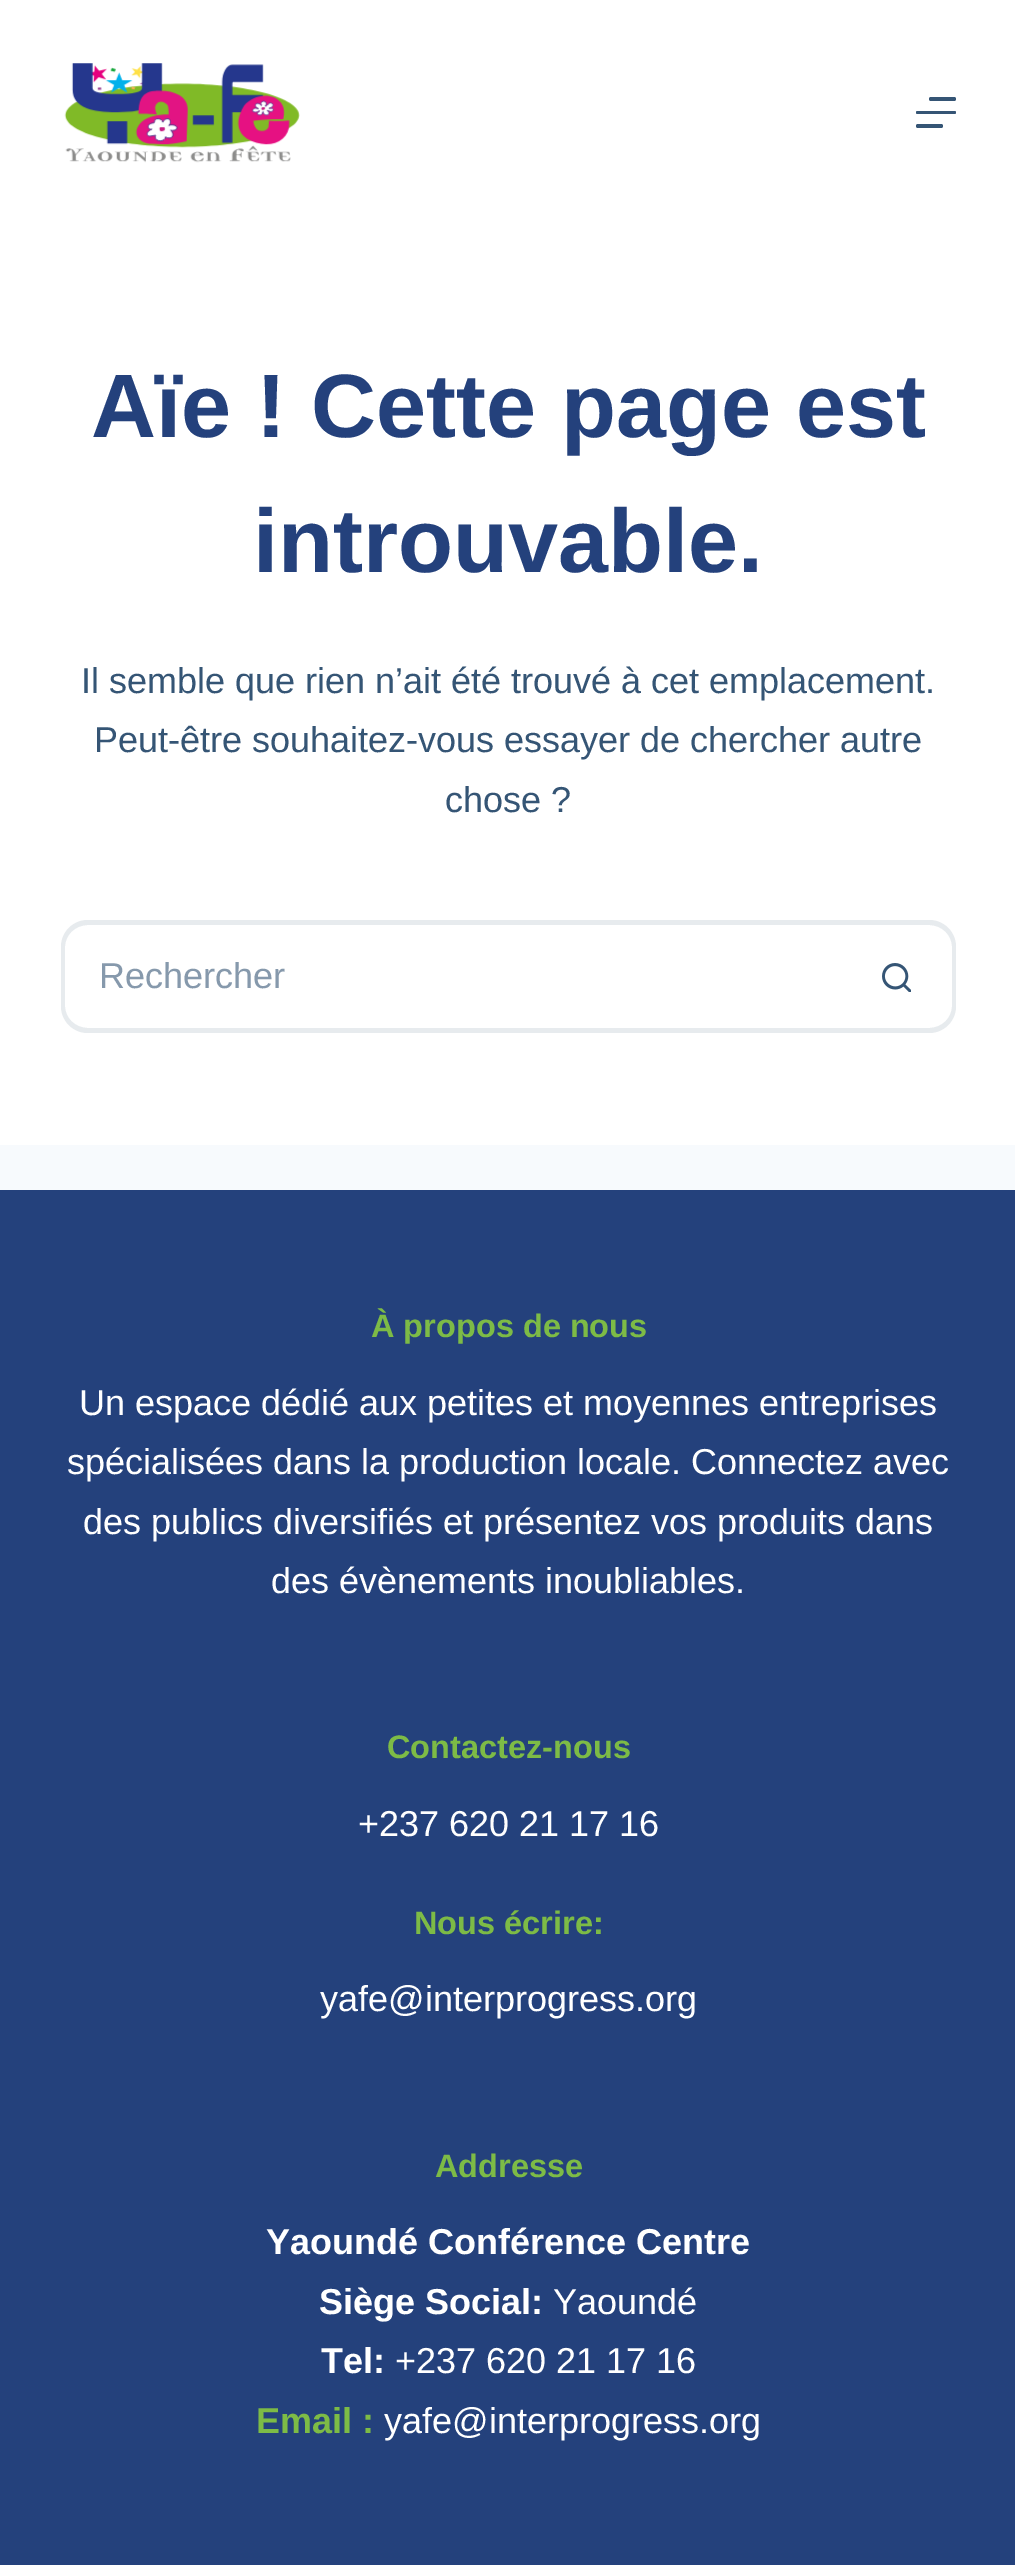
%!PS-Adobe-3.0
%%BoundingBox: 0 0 1015 2572
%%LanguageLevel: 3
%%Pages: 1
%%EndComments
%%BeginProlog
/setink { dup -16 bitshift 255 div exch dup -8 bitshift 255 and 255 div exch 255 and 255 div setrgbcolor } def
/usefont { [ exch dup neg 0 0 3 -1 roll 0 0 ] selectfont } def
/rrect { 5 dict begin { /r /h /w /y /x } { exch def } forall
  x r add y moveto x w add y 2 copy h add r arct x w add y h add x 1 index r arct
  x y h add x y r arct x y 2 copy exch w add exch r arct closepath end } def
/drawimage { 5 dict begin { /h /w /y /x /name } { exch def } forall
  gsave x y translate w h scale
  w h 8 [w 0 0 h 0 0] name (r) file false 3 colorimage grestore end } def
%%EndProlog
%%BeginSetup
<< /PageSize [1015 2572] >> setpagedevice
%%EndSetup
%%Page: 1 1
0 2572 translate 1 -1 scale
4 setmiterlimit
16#FFFFFF setink
0 0 1015 2572 rectfill
(img1.raw) 64 63 236 100 drawimage
16#355575 setink
929 97 27 4 2 rrect fill
916 111 40 3 1.5 rrect fill
916 124 27 4 2 rrect fill
/LiberationSans-Bold 90 usefont
16#24417C setink
91 437 moveto (Aïe ! Cette page est) show
253 572 moveto (introuvable.) show
/LiberationSans-Regular 36 usefont
16#355575 setink
[
    [(Il semble que rien n’ait été trouvé à cet emplacement.) 81 693]
    [(Peut-être souhaitez-vous essayer de chercher autre) 94 752]
    [(chose ?) 445 812]
] { aload pop moveto show } forall
16#E7EBEE setink
88 920 moveto 844 920 lineto 844 1033 lineto 88 1033 lineto 73 1033 61 1021 61 1006 curveto 61 947 lineto 61 932 73 920 88 920 curveto closepath 88 925 moveto 844 925 lineto 844 1028 lineto 88 1028 lineto 75 1028 65 1018 65 1006 curveto 65 947 lineto 65 935 75 925 88 925 curveto closepath eofill
16#8699AC setink
99 988 moveto (Rechercher) show
16#E7EBEE setink
844 920 moveto 929 920 lineto 944 920 956 932 956 947 curveto 956 1006 lineto 956 1021 944 1033 929 1033 curveto 844 1033 lineto closepath 844 925 moveto 929 925 lineto 942 925 952 935 952 947 curveto 952 1006 lineto 952 1018 942 1028 929 1028 curveto 844 1028 lineto closepath eofill
(img2.raw) 882 963 29 29 drawimage
16#F7FAFD setink
0 1145 1015 45 rectfill
16#24417C setink
0 1190 1015 1375 rectfill
/LiberationSans-Bold 32.5 usefont
16#7DBB46 setink
371 1337 moveto (À propos de nous) show
/LiberationSans-Regular 36 usefont
16#FFFFFF setink
[
    [(Un espace dédié aux petites et moyennes entreprises) 79 1415]
    [(spécialisées dans la production locale. Connectez avec) 67 1474]
    [(des publics diversifiés et présentez vos produits dans) 83 1534]
    [(des évènements inoubliables.) 271 1593]
] { aload pop moveto show } forall
/LiberationSans-Bold 32.5 usefont
16#7DBB46 setink
387 1758 moveto (Contactez-nous) show
/LiberationSans-Regular 36 usefont
16#FFFFFF setink
358 1836 moveto (+237 620 21 17 16) show
/LiberationSans-Bold 32.5 usefont
16#7DBB46 setink
414 1934 moveto (Nous écrire:) show
/LiberationSans-Regular 36 usefont
16#FFFFFF setink
320 2011 moveto (yafe@interprogress.org) show
/LiberationSans-Bold 32.5 usefont
16#7DBB46 setink
435 2177 moveto (Addresse) show
/LiberationSans-Bold 36 usefont
16#FFFFFF setink
266 2254 moveto (Yaoundé Conférence Centre) show
319 2314 moveto (Siège Social:) show
/LiberationSans-Regular 36 usefont
553 2314 moveto (Yaoundé) show
/LiberationSans-Bold 36 usefont
321 2373 moveto (Tel:) show
/LiberationSans-Regular 36 usefont
395 2373 moveto (+237 620 21 17 16) show
/LiberationSans-Bold 36 usefont
16#7DBB46 setink
256 2433 moveto (Email :) show
/LiberationSans-Regular 36 usefont
16#FFFFFF setink
384 2433 moveto (yafe@interprogress.org) show
showpage
%%EOF
